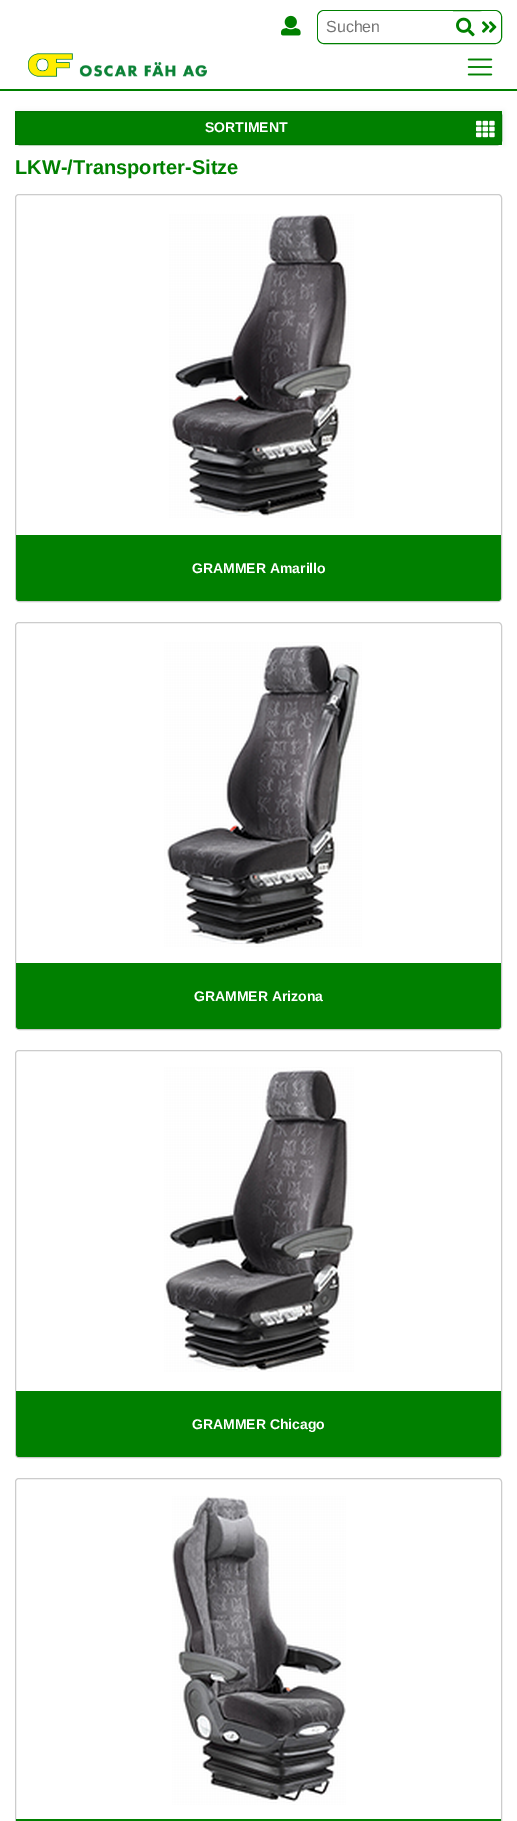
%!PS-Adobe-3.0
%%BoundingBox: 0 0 517 1821
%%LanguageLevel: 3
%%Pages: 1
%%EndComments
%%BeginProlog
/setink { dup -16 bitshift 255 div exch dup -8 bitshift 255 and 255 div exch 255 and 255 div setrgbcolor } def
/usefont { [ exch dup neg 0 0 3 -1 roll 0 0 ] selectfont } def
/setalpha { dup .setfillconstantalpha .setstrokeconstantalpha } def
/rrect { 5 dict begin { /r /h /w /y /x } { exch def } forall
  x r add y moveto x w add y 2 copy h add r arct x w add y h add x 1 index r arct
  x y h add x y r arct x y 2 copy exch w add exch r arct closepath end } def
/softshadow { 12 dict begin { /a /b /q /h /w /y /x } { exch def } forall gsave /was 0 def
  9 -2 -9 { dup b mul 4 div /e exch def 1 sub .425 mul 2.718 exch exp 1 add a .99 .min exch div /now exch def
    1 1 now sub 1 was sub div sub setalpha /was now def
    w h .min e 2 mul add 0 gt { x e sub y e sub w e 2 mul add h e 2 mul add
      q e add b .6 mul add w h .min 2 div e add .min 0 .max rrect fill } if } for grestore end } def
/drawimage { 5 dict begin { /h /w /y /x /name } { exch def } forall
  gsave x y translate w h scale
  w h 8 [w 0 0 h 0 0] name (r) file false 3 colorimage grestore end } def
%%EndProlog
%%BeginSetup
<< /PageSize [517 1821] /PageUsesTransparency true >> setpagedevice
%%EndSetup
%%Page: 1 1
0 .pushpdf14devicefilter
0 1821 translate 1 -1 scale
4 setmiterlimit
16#FFFFFF setink
0 0 517 1821 rectfill
16#008000 setink
0 89 517 2 rectfill
(img1.raw) 281 15 20 21 drawimage
317.5 10.5 184 33 6.5 rrect stroke
16#FFFFFF setink
325 11 moveto 453 11 lineto 453 43 lineto 325 43 lineto 321 43 318 40 318 36 curveto 318 18 lineto 318 14 321 11 325 11 curveto closepath fill
/LiberationSans-Regular 16 usefont
16#757575 setink
326 32 moveto (Suchen) show
(img2.raw) 456 17 19 20 drawimage
16#FFFFFF setink
477 11 24 32 7 rrect fill
(img3.raw) 482 21 15 12 drawimage
(img4.raw) 28 53 45 24 drawimage
(img5.raw) 79 62 128 15 drawimage
(img6.raw) 467 58 26 18 drawimage
16#000000 setink
17 111 487 34 0 2.5 0.05 softshadow
16#008000 setink
15 111 487 34 rectfill
16#007300 setink
15.5 111.5 486 33 3.5 rrect stroke
/LiberationSans-Bold 14 usefont
16#FFFFFF setink
205 132 moveto (SORTIMENT) show
(img7.raw) 476 120 19 18 drawimage
/LiberationSans-Bold 20 usefont
16#008000 setink
15 174 moveto (LKW-/Transporter-Sitze) show
16#CCCCCC setink
15.5 194.5 486 407 3.5 rrect stroke
(img8.raw) 169 214 185 304 drawimage
16#008000 setink
16 535 moveto 501 535 lineto 501 598 lineto 501 599.5 499.5 601 498 601 curveto 19 601 lineto 17.5 601 16 599.5 16 598 curveto closepath fill
/LiberationSans-Bold 14 usefont
16#FFFFFF setink
192 573 moveto (GRAMMER Amarillo) show
16#CCCCCC setink
15.5 622.5 486 407 3.5 rrect stroke
(img9.raw) 164 642 198 305 drawimage
16#008000 setink
16 963 moveto 501 963 lineto 501 1026 lineto 501 1027.5 499.5 1029 498 1029 curveto 19 1029 lineto 17.5 1029 16 1027.5 16 1026 curveto closepath fill
16#FFFFFF setink
194 1001 moveto (GRAMMER Arizona) show
16#CCCCCC setink
15.5 1050.5 486 407 3.5 rrect stroke
(img10.raw) 164 1067 190 305 drawimage
16#008000 setink
16 1391 moveto 501 1391 lineto 501 1454 lineto 501 1455.5 499.5 1457 498 1457 curveto 19 1457 lineto 17.5 1457 16 1455.5 16 1454 curveto closepath fill
16#FFFFFF setink
192 1429 moveto (GRAMMER Chicago) show
16#CCCCCC setink
15.5 1478.5 486 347 3.5 rrect stroke
(img11.raw) 172 1496 174 309 drawimage
16#008000 setink
16 1819 485 2 rectfill
.poppdf14devicefilter showpage
%%EOF
